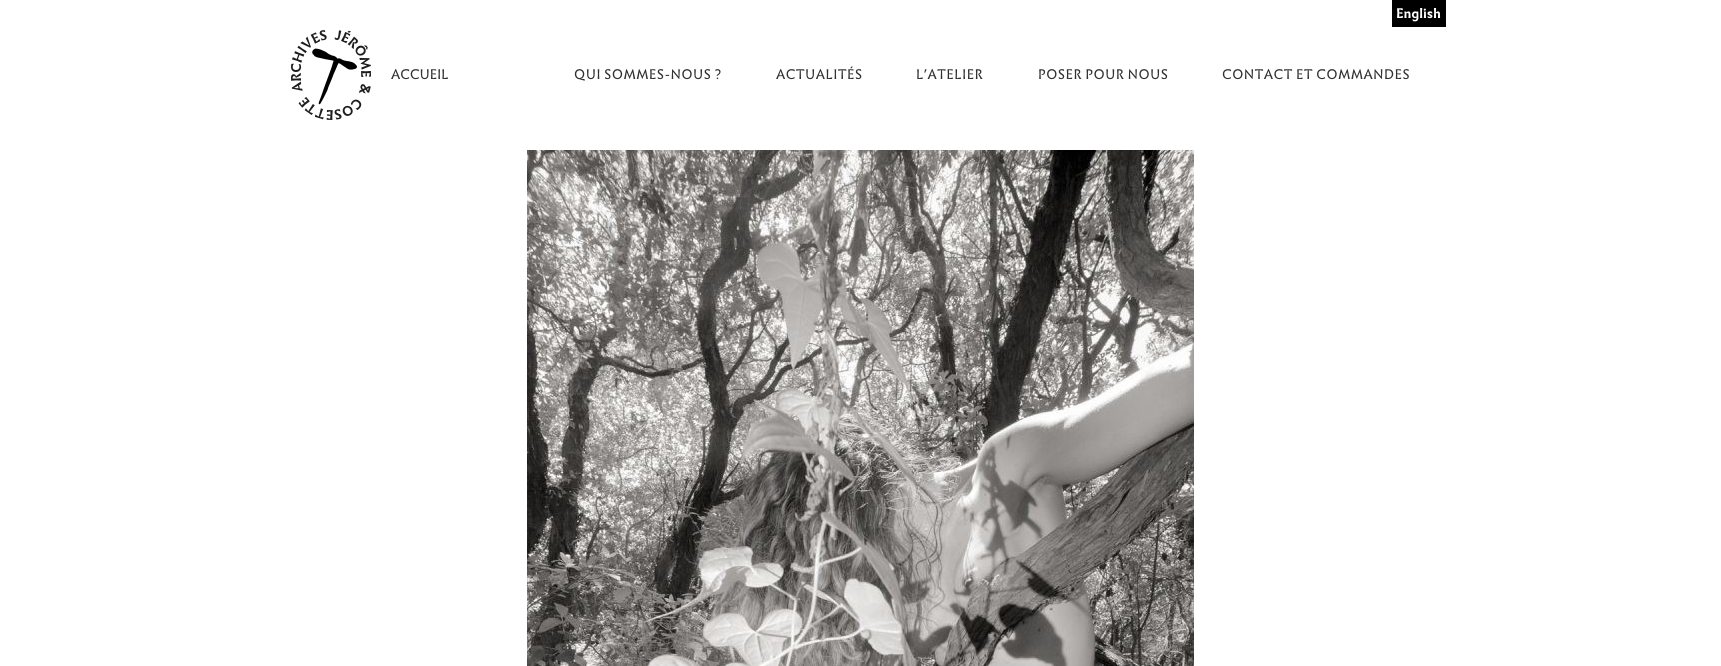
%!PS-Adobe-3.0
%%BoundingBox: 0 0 1721 666
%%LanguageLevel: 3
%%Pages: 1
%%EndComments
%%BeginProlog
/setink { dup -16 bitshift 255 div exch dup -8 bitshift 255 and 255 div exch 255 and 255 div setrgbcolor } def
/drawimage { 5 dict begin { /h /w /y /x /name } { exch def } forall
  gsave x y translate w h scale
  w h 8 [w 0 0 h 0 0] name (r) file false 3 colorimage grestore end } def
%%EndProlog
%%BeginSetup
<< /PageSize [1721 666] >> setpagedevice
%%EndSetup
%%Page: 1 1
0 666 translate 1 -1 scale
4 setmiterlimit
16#FFFFFF setink
0 0 1721 666 rectfill
16#000000 setink
1392 0 54 27 rectfill
(img1.raw) 1397 8 44 14 drawimage
(img2.raw) 291 30 80 90 drawimage
(img3.raw) 391 68 57 12 drawimage
(img4.raw) 574 69 147 12 drawimage
(img5.raw) 776 66 86 14 drawimage
(img6.raw) 917 68 66 11 drawimage
(img7.raw) 1039 69 129 11 drawimage
(img8.raw) 1222 68 187 12 drawimage
(img9.raw) 527 150 667 516 drawimage
showpage
%%EOF
